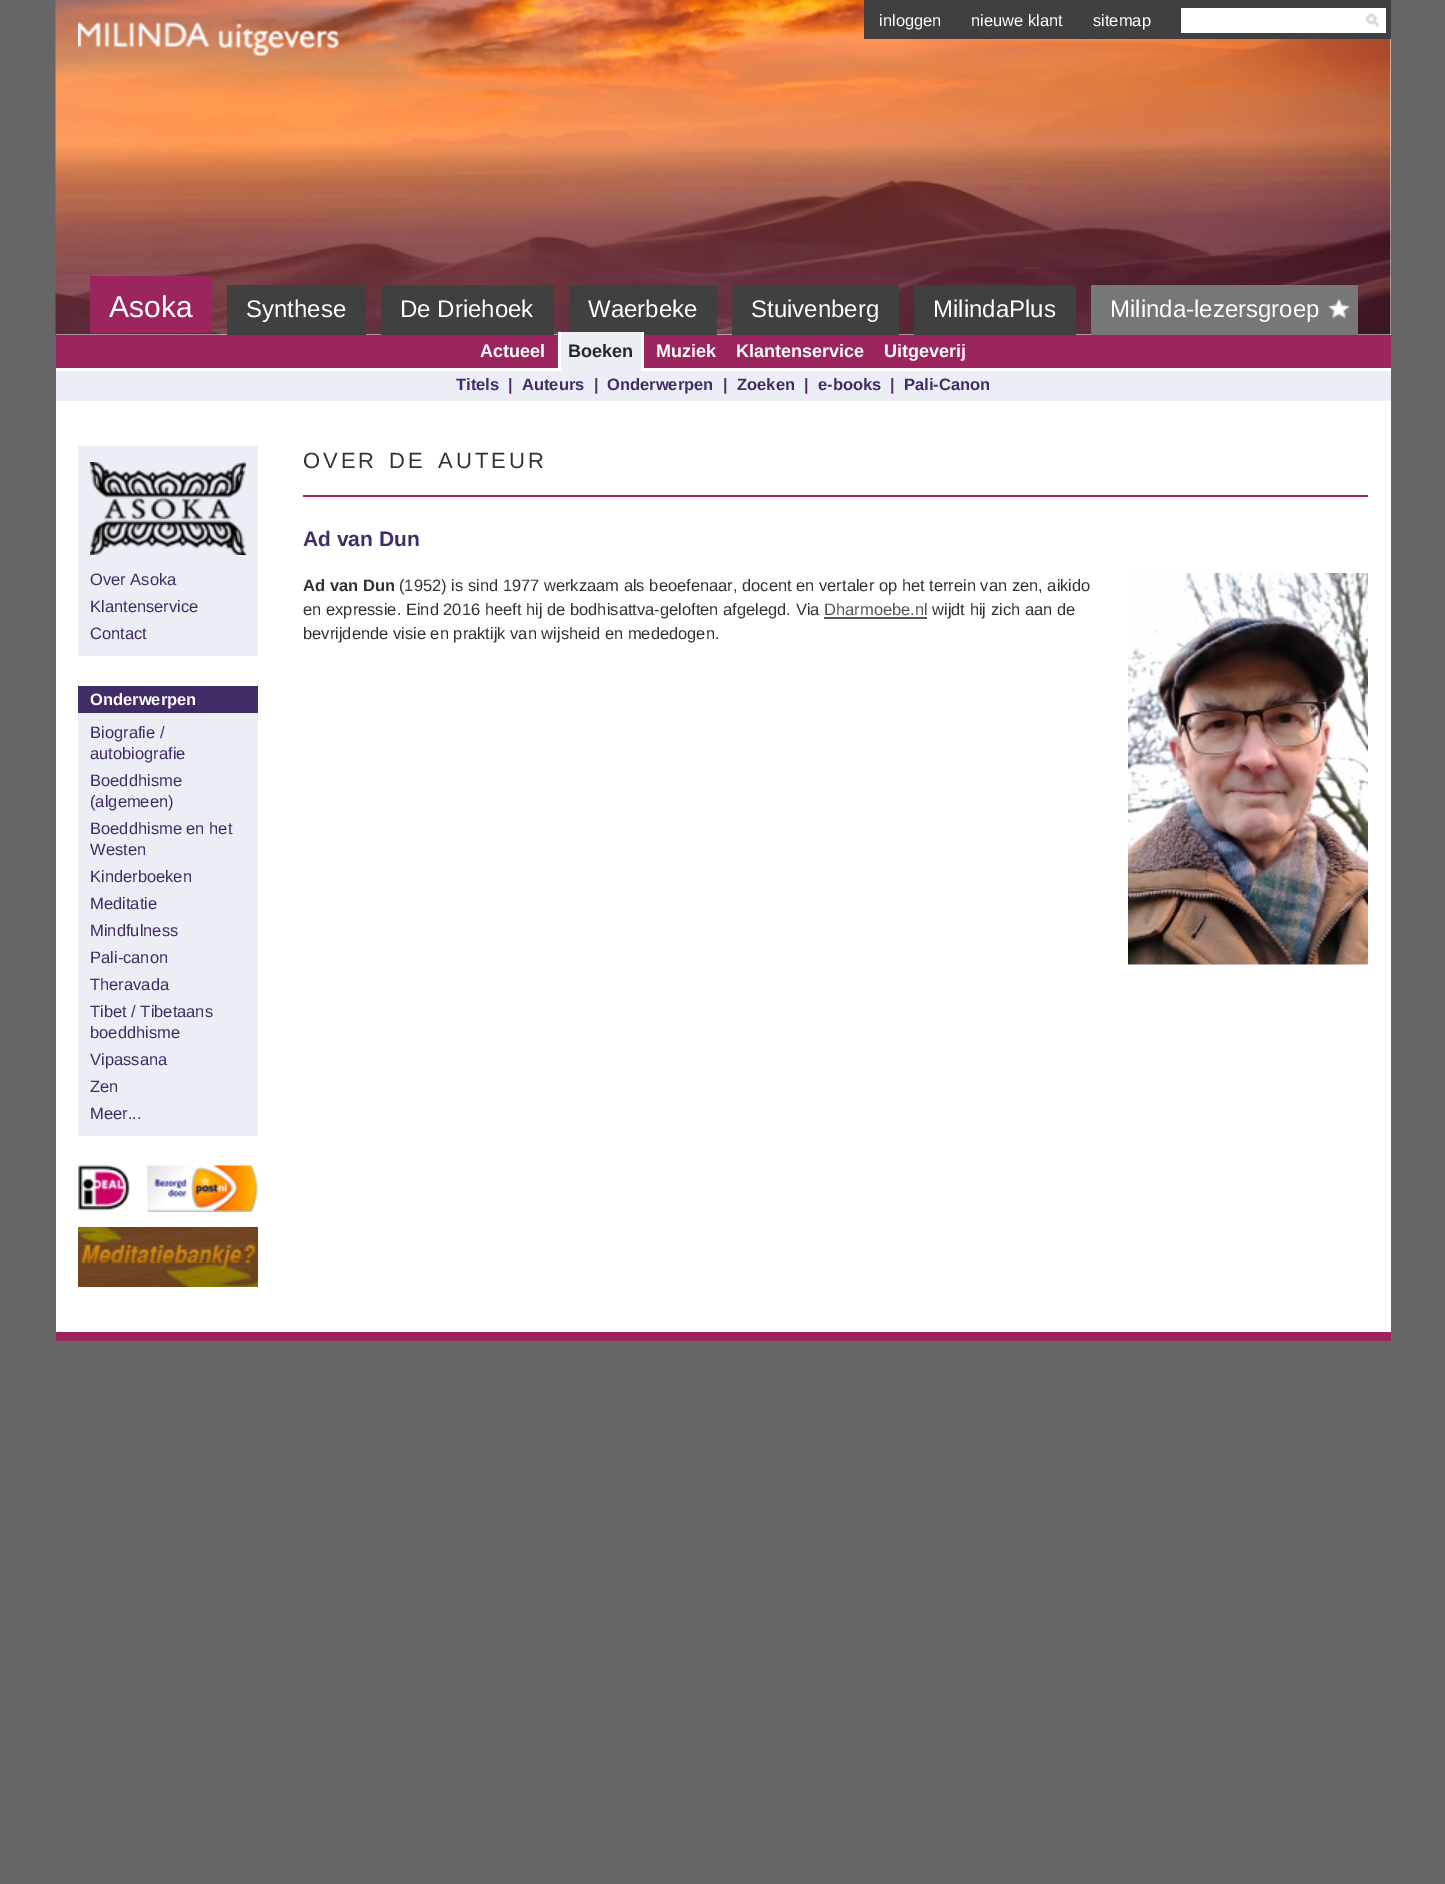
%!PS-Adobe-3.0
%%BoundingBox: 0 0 1445 1884
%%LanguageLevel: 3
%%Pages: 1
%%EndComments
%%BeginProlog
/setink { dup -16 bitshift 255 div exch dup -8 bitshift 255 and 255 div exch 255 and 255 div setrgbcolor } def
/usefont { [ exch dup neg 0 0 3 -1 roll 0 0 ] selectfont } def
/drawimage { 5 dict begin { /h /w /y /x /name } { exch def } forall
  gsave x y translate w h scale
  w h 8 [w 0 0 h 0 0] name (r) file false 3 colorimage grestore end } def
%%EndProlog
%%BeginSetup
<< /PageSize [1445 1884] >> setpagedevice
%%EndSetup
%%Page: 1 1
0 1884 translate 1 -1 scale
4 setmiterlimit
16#666666 setink
0 0 1445 1884 rectfill
16#FFFFFF setink
56 39 1335 1293 rectfill
16#9D255D setink
56 1332 1335 9 rectfill
(img1.raw) 55 0 1336 335 drawimage
(img2.raw) 78 22 261 34 drawimage
16#404040 setink
864 0 527 39 rectfill
/LiberationSans-Regular 16.5 usefont
16#FFFFFF setink
[
    [(inloggen) 879 26]
    [(nieuwe klant) 971 26]
    [(sitemap) 1093 26]
] { aload pop moveto show } forall
1181 8 205 25 rectfill
(img3.raw) 1365 13 15 15 drawimage
16#9D255D setink
90 276 122 57 rectfill
/LiberationSans-Regular 30 usefont
16#FFFFFF setink
109 317 moveto (Asoka) show
16#404040 setink
227 285 139 50 rectfill
/LiberationSans-Regular 24 usefont
16#FFFFFF setink
246 317 moveto (Synthese) show
16#404040 setink
381 285 173 50 rectfill
16#FFFFFF setink
400 317 moveto (De Driehoek) show
16#404040 setink
569 285 148 50 rectfill
16#FFFFFF setink
588 317 moveto (Waerbeke) show
16#404040 setink
732 285 167 50 rectfill
16#FFFFFF setink
751 317 moveto (Stuivenberg) show
16#404040 setink
914 285 162 50 rectfill
16#FFFFFF setink
933 317 moveto (MilindaPlus) show
16#777777 setink
1091 285 267 50 rectfill
16#FFFFFF setink
1110 317 moveto (Milinda-lezersgroep) show
(img4.raw) 1327 298 23 21 drawimage
16#9D255D setink
56 335 1335 33 rectfill
/LiberationSans-Bold 18 usefont
16#FFFFFF setink
480 357 moveto (Actueel) show
[
    [561 332 80 39 16#EBEEF4]
    [641 332 3 39 16#FFFFFF]
    [558 332 3 39 16#FFFFFF]
] { aload pop setink rectfill } forall
16#272727 setink
568 357 moveto (Boeken) show
16#FFFFFF setink
[
    [(Muziek) 656 357]
    [(Klantenservice) 736 357]
    [(Uitgeverij) 884 357]
] { aload pop moveto show } forall
16#EBEEF4 setink
56 371 1335 30 rectfill
/LiberationSans-Bold 16.5 usefont
16#402D67 setink
456 390 moveto (Titels) show
16#552C67 setink
508 390 moveto (|) show
16#402D67 setink
522 390 moveto (Auteurs) show
16#552C67 setink
594 390 moveto (|) show
16#402D67 setink
607 390 moveto (Onderwerpen) show
16#552C67 setink
723 390 moveto (|) show
16#402D67 setink
737 390 moveto (Zoeken) show
16#552C67 setink
804 390 moveto (|) show
16#402D67 setink
818 390 moveto (e-books) show
16#552C67 setink
890 390 moveto (|) show
16#402D67 setink
904 390 moveto (Pali-Canon) show
16#9D255D setink
303 495 1065 2 rectfill
/LiberationSans-Regular 22 usefont
16#333333 setink
303 468 moveto 3 0 (OVER) ashow
389 468 moveto 3 0 (DE) ashow
438 468 moveto 3 0 (AUTEUR) ashow
/LiberationSans-Bold 21 usefont
16#402D67 setink
303 546 moveto (Ad van Dun) show
/LiberationSans-Bold 16.5 usefont
16#333333 setink
303 591 moveto (Ad van Dun) show
/LiberationSans-Regular 16.5 usefont
399 591 moveto (\(1952\) is sind 1977 werkzaam als beoefenaar, docent en vertaler op het terrein van zen, aikido) show
303 615 moveto (en expressie. Eind 2016 heeft hij de bodhisattva-geloften afgelegd. Via) show
16#555555 setink
824 615 moveto (Dharmoebe.nl) show
824 617 103 2 rectfill
16#333333 setink
932 615 moveto (wijdt hij zich aan de) show
303 639 moveto (bevrijdende visie en praktijk van wijsheid en mededogen.) show
(img5.raw) 1128 573 240 392 drawimage
16#EBEEF4 setink
78 446 180 210 rectfill
(img6.raw) 90 462 156 93 drawimage
16#402D67 setink
[
    [(Over Asoka) 90 585]
    [(Klantenservice) 90 612]
    [(Contact) 90 639]
] { aload pop moveto show } forall
16#EBEEF4 setink
78 713 180 423 rectfill
16#402D67 setink
78 686 180 27 rectfill
/LiberationSans-Bold 16.5 usefont
16#FFFFFF setink
90 705 moveto (Onderwerpen) show
/LiberationSans-Regular 16.5 usefont
16#402D67 setink
[
    [(Biografie /) 90 738]
    [(autobiografie) 90 759]
    [(Boeddhisme) 90 786]
    [(\(algemeen\)) 90 807]
    [(Boeddhisme en het) 90 834]
    [(Westen) 90 855]
    [(Kinderboeken) 90 882]
    [(Meditatie) 90 909]
    [(Mindfulness) 90 936]
    [(Pali-canon) 90 963]
    [(Theravada) 90 990]
    [(Tibet / Tibetaans) 90 1017]
    [(boeddhisme) 90 1038]
    [(Vipassana) 90 1065]
    [(Zen) 90 1092]
    [(Meer...) 90 1119]
] { aload pop moveto show } forall
(img7.raw) 78 1165 52 46 drawimage
(img8.raw) 147 1165 111 47 drawimage
(img9.raw) 78 1227 180 60 drawimage
showpage
%%EOF
